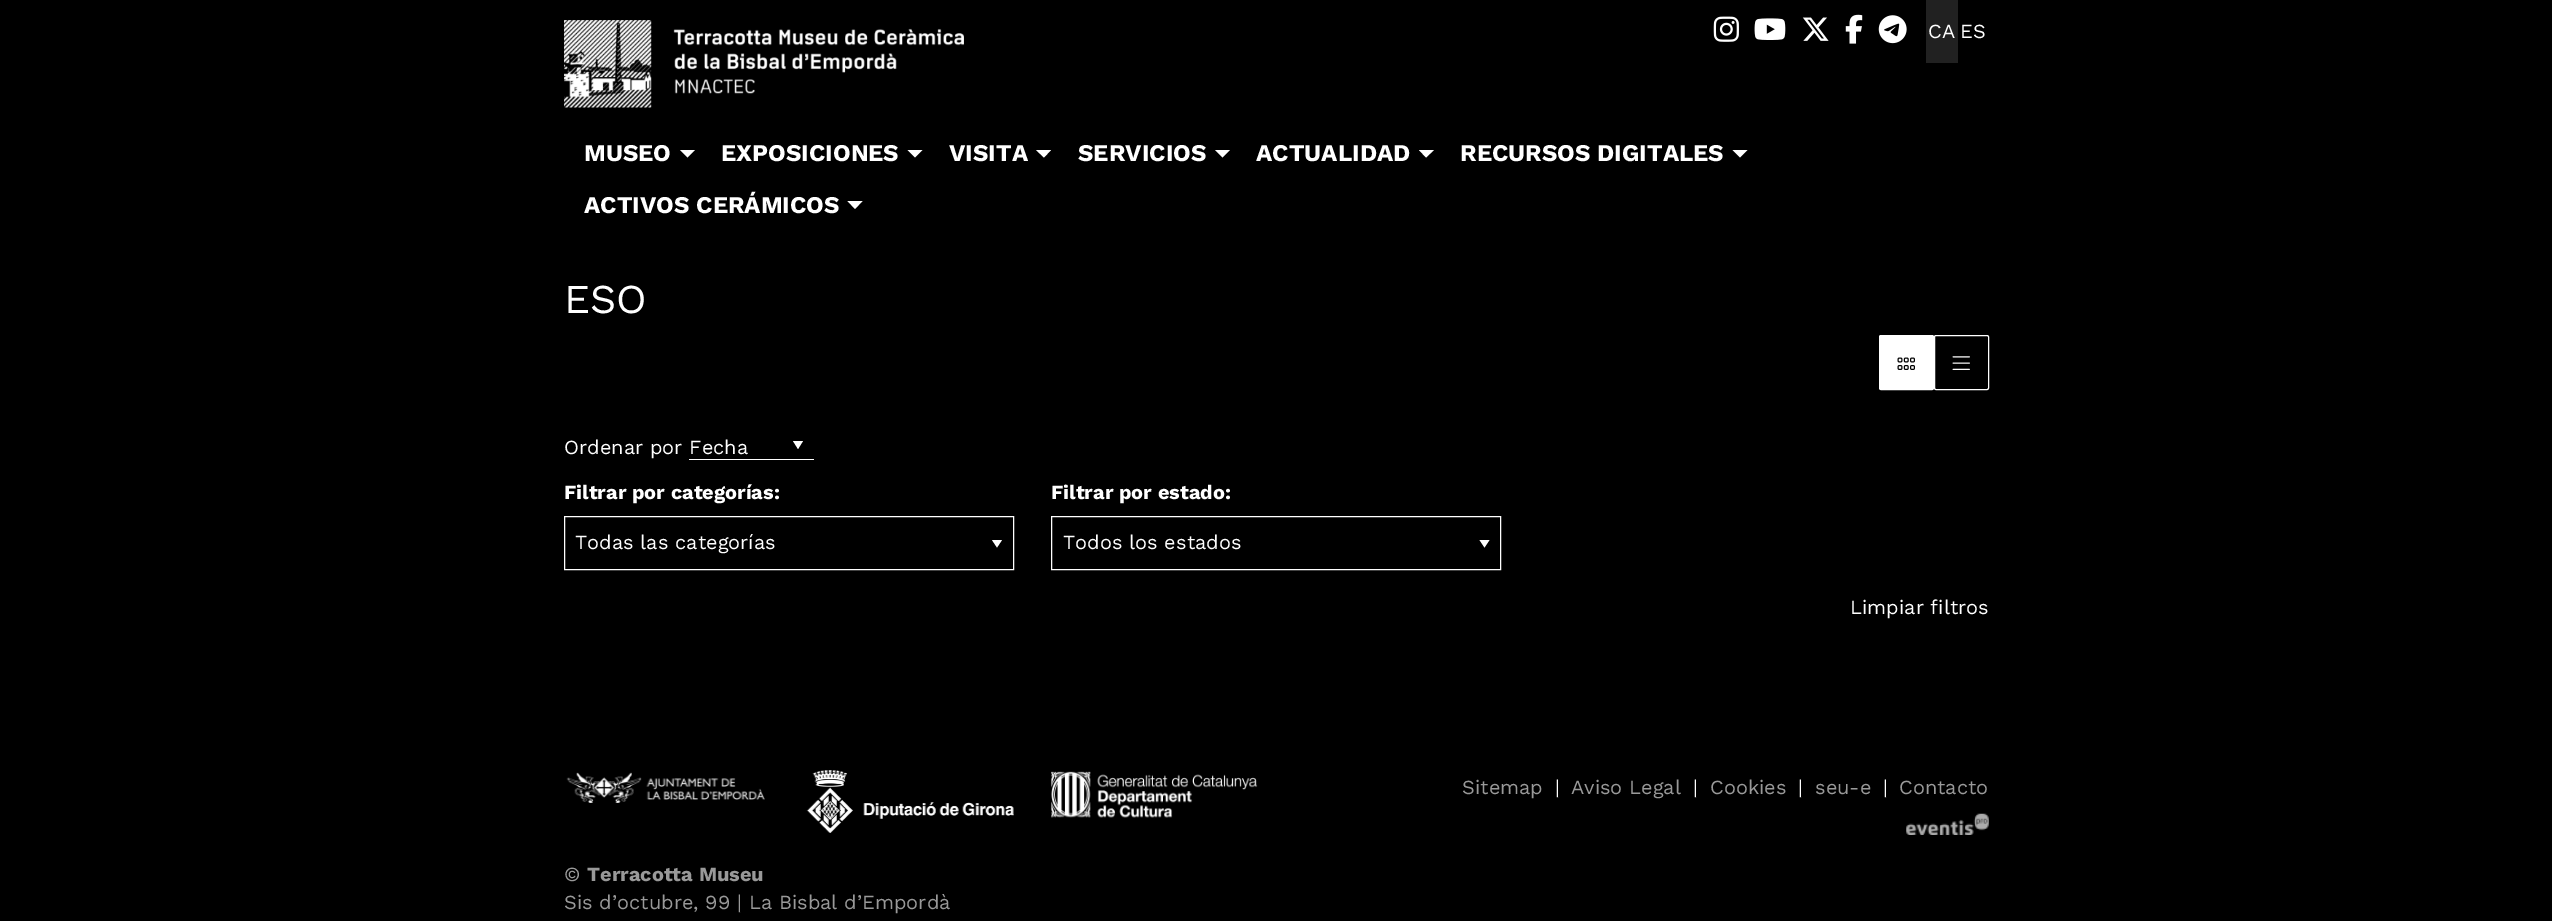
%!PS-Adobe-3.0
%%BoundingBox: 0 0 2552 921
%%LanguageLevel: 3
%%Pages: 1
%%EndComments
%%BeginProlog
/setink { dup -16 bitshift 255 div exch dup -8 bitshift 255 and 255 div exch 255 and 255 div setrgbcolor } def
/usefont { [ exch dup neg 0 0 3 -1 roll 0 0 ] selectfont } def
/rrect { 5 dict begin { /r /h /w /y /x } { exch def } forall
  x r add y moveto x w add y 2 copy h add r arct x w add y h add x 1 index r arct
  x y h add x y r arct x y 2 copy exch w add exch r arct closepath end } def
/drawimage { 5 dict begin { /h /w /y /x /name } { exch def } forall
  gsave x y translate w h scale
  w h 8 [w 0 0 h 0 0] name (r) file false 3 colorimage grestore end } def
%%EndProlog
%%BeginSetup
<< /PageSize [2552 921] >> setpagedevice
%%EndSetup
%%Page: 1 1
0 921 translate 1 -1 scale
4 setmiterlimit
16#000000 setink
0 0 2552 921 rectfill
(img1.raw) 564 20 400 88 drawimage
(img2.raw) 1713 16 26 26 drawimage
(img3.raw) 1754 18 32 22 drawimage
(img4.raw) 1802 17 27 24 drawimage
(img5.raw) 1845 14 18 30 drawimage
(img6.raw) 1878 15 29 29 drawimage
16#212121 setink
1926 0 32 63 rectfill
/WorkSans-Regular 20 usefont
16#FFFFFF setink
1928 38 moveto (CA) show
1960 38 moveto (ES) show
/WorkSans-Bold 24 usefont
584 161 moveto (MUSEO) show
680 150 moveto 695 150 lineto 687.5 157.5 lineto closepath fill
721 161 moveto (EXPOSICIONES) show
907.5 150 moveto 922.5 150 lineto 915 157.5 lineto closepath fill
949 161 moveto (VISITA) show
1036 150 moveto 1051 150 lineto 1044 157.5 lineto closepath fill
1078 161 moveto (SERVICIOS) show
1215 150 moveto 1230 150 lineto 1222.5 157.5 lineto closepath fill
1256 161 moveto (ACTUALIDAD) show
1419 150 moveto 1434 150 lineto 1426 157.5 lineto closepath fill
1460 161 moveto (RECURSOS DIGITALES) show
1732.5 150 moveto 1747.5 150 lineto 1740 157.5 lineto closepath fill
584 213 moveto (ACTIVOS CERÁMICOS) show
847.5 201 moveto 862.5 201 lineto 855 209 lineto closepath fill
/WorkSans-Regular 41 usefont
564 313 moveto (ESO) show
1879.5 335.5 54 54 1.5 rrect gsave fill grestore
stroke
(img7.raw) 1897 357 18 13 drawimage
1934.5 335.5 54 54 1.5 rrect stroke
(img8.raw) 1952 356 18 14 drawimage
/WorkSans-Regular 20 usefont
564 454 moveto (Ordenar por Fecha) show
793 441 moveto 803 441 lineto 798 449 lineto closepath fill
689 459 125 1 rectfill
/WorkSans-Bold 20 usefont
564 499 moveto (Filtrar por categorías:) show
992 540 moveto 1002 540 lineto 997 547.5 lineto closepath fill
564.5 516.5 449 53 rectstroke
/WorkSans-Regular 20 usefont
575 549 moveto (Todas las categorías) show
/WorkSans-Bold 20 usefont
1051 499 moveto (Filtrar por estado:) show
1479.5 540 moveto 1489.5 540 lineto 1484.5 547.5 lineto closepath fill
1051.5 516.5 449 53 rectstroke
/WorkSans-Regular 20 usefont
1063 549 moveto (Todos los estados) show
1850 614 moveto (Limpiar filtros) show
16#999999 setink
1462 794 moveto (Sitemap) show
16#FFFFFF setink
1555 794 moveto (|) show
16#999999 setink
1571 794 moveto (Aviso Legal) show
16#FFFFFF setink
1693 794 moveto (|) show
16#999999 setink
1710 794 moveto (Cookies) show
16#FFFFFF setink
1798 794 moveto (|) show
16#999999 setink
1815 794 moveto (seu-e) show
16#FFFFFF setink
1883 794 moveto (|) show
16#999999 setink
1899 794 moveto (Contacto) show
(img9.raw) 1906 813 83 22 drawimage
(img10.raw) 566 772 199 31 drawimage
(img11.raw) 806 770 208 63 drawimage
(img12.raw) 1051 771 207 47 drawimage
564 881 moveto (©) show
/WorkSans-Bold 20 usefont
587 881 moveto (Terracotta Museu) show
/WorkSans-Regular 20 usefont
564 909 moveto (Sis d’octubre, 99 | La Bisbal d’Empordà) show
showpage
%%EOF
